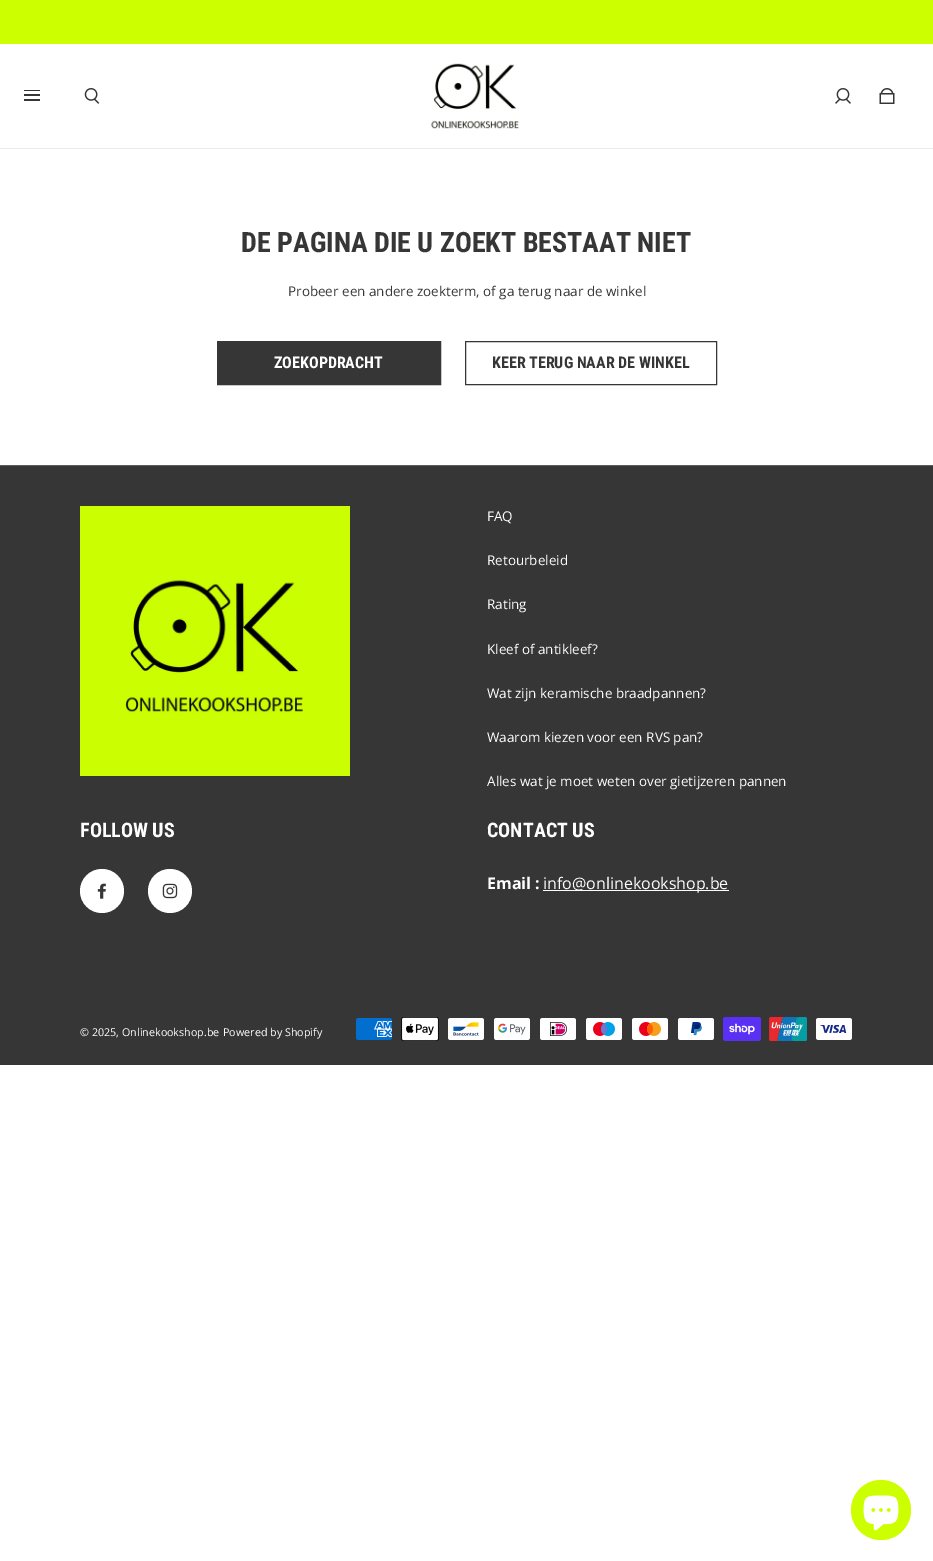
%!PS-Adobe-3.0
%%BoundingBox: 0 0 933 1561
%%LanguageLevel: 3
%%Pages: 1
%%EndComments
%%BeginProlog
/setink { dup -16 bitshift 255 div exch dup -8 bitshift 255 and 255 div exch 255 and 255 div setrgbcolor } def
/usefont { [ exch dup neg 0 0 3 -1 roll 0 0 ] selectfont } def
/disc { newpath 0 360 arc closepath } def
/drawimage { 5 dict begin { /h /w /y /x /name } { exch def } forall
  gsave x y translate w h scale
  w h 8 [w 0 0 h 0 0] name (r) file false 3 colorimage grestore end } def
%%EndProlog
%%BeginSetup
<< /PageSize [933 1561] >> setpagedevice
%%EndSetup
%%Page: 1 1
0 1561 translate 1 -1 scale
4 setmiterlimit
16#FFFFFF setink
0 0 933 1561 rectfill
[
    [0 0 933 44 16#CCFF00]
    [0 148 933 1 16#EBEBEB]
    [24 90 16 1 16#363636]
    [24 94 16 2 16#363636]
    [24 99 16 2 16#363636]
] { aload pop setink rectfill } forall
(img1.raw) 84 88 16 16 drawimage
(img2.raw) 431 63 88 66 drawimage
(img3.raw) 835 88 16 16 drawimage
(img4.raw) 879 88 16 16 drawimage
/RobotoCondensed-Bold 28 usefont
241 252 moveto (DE PAGINA DIE U ZOEKT BESTAAT NIET) show
/OpenSans-Regular 13.45 usefont
288 296 moveto (Probeer een andere zoekterm, of ga terug naar de winkel) show
217.5 341.5 223 43 rectstroke
218 342 222 42 rectfill
/RobotoCondensed-Bold 16 usefont
16#FFFFFF setink
274 368 moveto (ZOEKOPDRACHT) show
16#363636 setink
465.5 341.5 251 43 rectstroke
492 368 moveto (KEER TERUG NAAR DE WINKEL) show
0 466 933 599 rectfill
16#5E5E5E setink
0 465 933 1 rectfill
(img5.raw) 80 506 270 270 drawimage
/OpenSans-Regular 13.45 usefont
16#FFFFFF setink
[
    [(FAQ) 487 521]
    [(Retourbeleid) 487 565]
    [(Rating) 487 609]
    [(Kleef of antikleef?) 487 654]
    [(Wat zijn keramische braadpannen?) 487 698]
    [(Waarom kiezen voor een RVS pan?) 487 742]
    [(Alles wat je moet weten over gietijzeren pannen) 487 786]
] { aload pop moveto show } forall
/RobotoCondensed-Bold 20 usefont
80 837 moveto (FOLLOW US) show
102 891 22 disc fill
(img6.raw) 97 883 9 16 drawimage
170 891 22 disc fill
(img7.raw) 162 883 16 16 drawimage
487 837 moveto (CONTACT US) show
/OpenSans-Bold 16 usefont
487 889 moveto (Email :) show
543 890 186 1 rectfill
/OpenSans-Regular 16 usefont
543 889 moveto (info@onlinekookshop.be) show
/OpenSans-Regular 10.75 usefont
80 1036 moveto (© 2025, Onlinekookshop.be) show
223 1036 moveto (Powered by Shopify) show
(img8.raw) 356 1018 36 22 drawimage
(img9.raw) 401 1017 38 24 drawimage
(img10.raw) 448 1018 36 22 drawimage
(img11.raw) 494 1018 36 22 drawimage
(img12.raw) 540 1018 36 22 drawimage
(img13.raw) 586 1018 36 22 drawimage
(img14.raw) 632 1018 36 22 drawimage
(img15.raw) 678 1018 36 22 drawimage
(img16.raw) 723 1017 38 24 drawimage
(img17.raw) 769 1017 38 24 drawimage
(img18.raw) 816 1018 36 22 drawimage
16#CCFF00 setink
881 1510 30 disc fill
(img19.raw) 863 1495 36 36 drawimage
showpage
%%EOF
